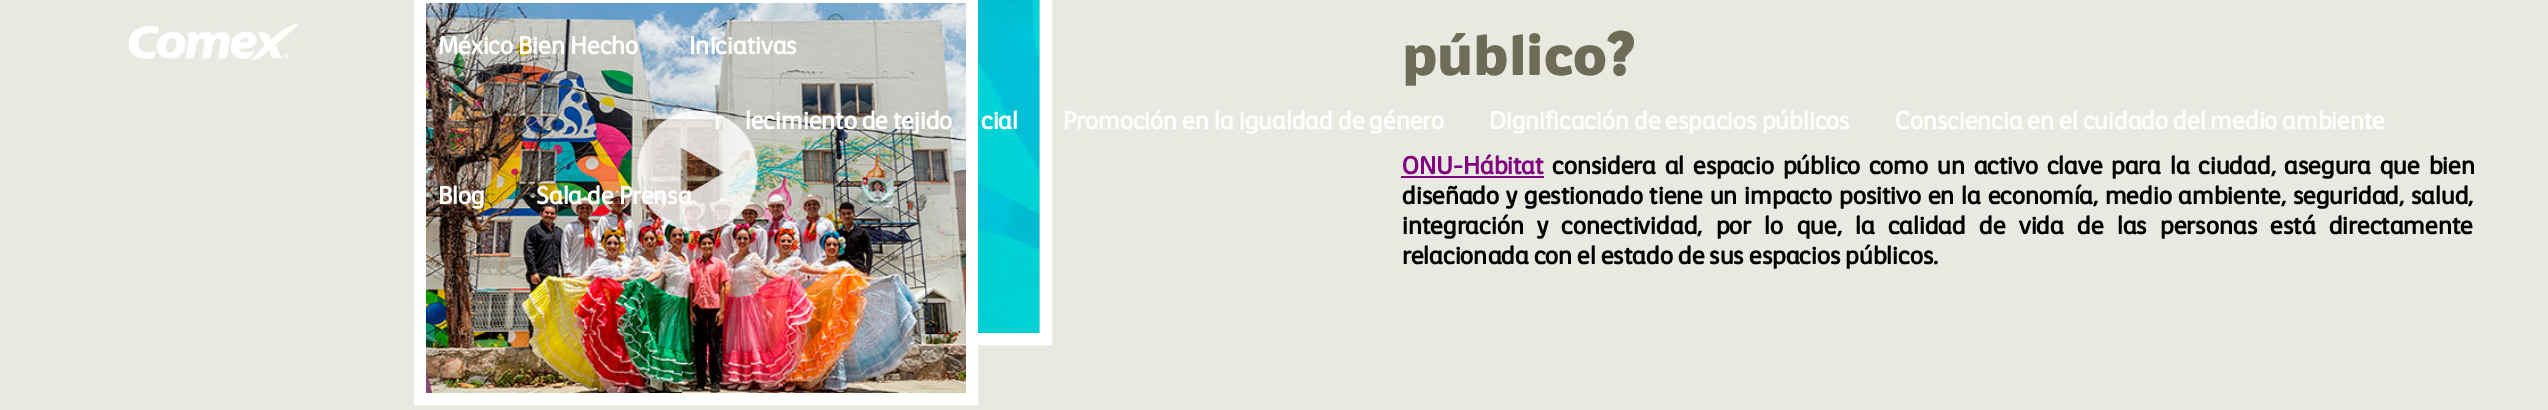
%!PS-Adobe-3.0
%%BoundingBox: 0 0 2548 410
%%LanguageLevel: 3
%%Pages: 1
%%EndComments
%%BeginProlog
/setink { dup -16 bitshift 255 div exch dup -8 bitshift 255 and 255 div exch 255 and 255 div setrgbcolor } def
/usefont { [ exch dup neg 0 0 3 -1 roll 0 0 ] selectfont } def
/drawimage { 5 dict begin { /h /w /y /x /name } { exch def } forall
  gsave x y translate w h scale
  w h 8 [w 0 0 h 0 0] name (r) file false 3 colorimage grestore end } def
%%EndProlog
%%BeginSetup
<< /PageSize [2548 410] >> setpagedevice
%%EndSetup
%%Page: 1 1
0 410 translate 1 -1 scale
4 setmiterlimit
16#E8E9E1 setink
0 0 2548 410 rectfill
16#FFFFFF setink
12 setlinewidth
659 -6 387 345 rectstroke
420 -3 552 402 rectstroke
(img1.raw) 978 0 62 333 drawimage
(img2.raw) 426 3 540 390 drawimage
(img3.raw) 637 111 121 120 drawimage
/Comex-Black 54 usefont
16#6E6B56 setink
1402 75 moveto (público?) show
/Comex-Bold 24 usefont
16#800080 setink
1402 174 moveto (ONU-Hábitat) show
1401 176 143 2 rectfill
16#000000 setink
1552 174 moveto 3.75 0 32 (considera al espacio público como un activo clave para la ciudad, asegura que bien) widthshow
1402 204 moveto 1.75 0 32 (diseñado y gestionado tiene un impacto positivo en la economía, medio ambiente, seguridad, salud,) widthshow
1402 234 moveto 8.25 0 32 (integración y conectividad, por lo que, la calidad de vida de las personas está directamente) widthshow
1402 264 moveto (relacionada con el estado de sus espacios públicos.) show
(img4.raw) 128 23 171 37 drawimage
16#FFFFFF setink
[
    [(México Bien Hecho) 438 54]
    [(Iniciativas) 689 54]
    [(r) 714 129]
    [(lecimiento de tejido) 745 129]
    [(cial) 981 129]
    [(Promoción en la igualdad de género) 1063 129]
    [(Dignificación de espacios públicos) 1489 129]
    [(Consciencia en el cuidado del medio ambiente) 1895 129]
    [(Blog) 438 204]
    [(Sala de Prensa) 536 204]
] { aload pop moveto show } forall
showpage
%%EOF
